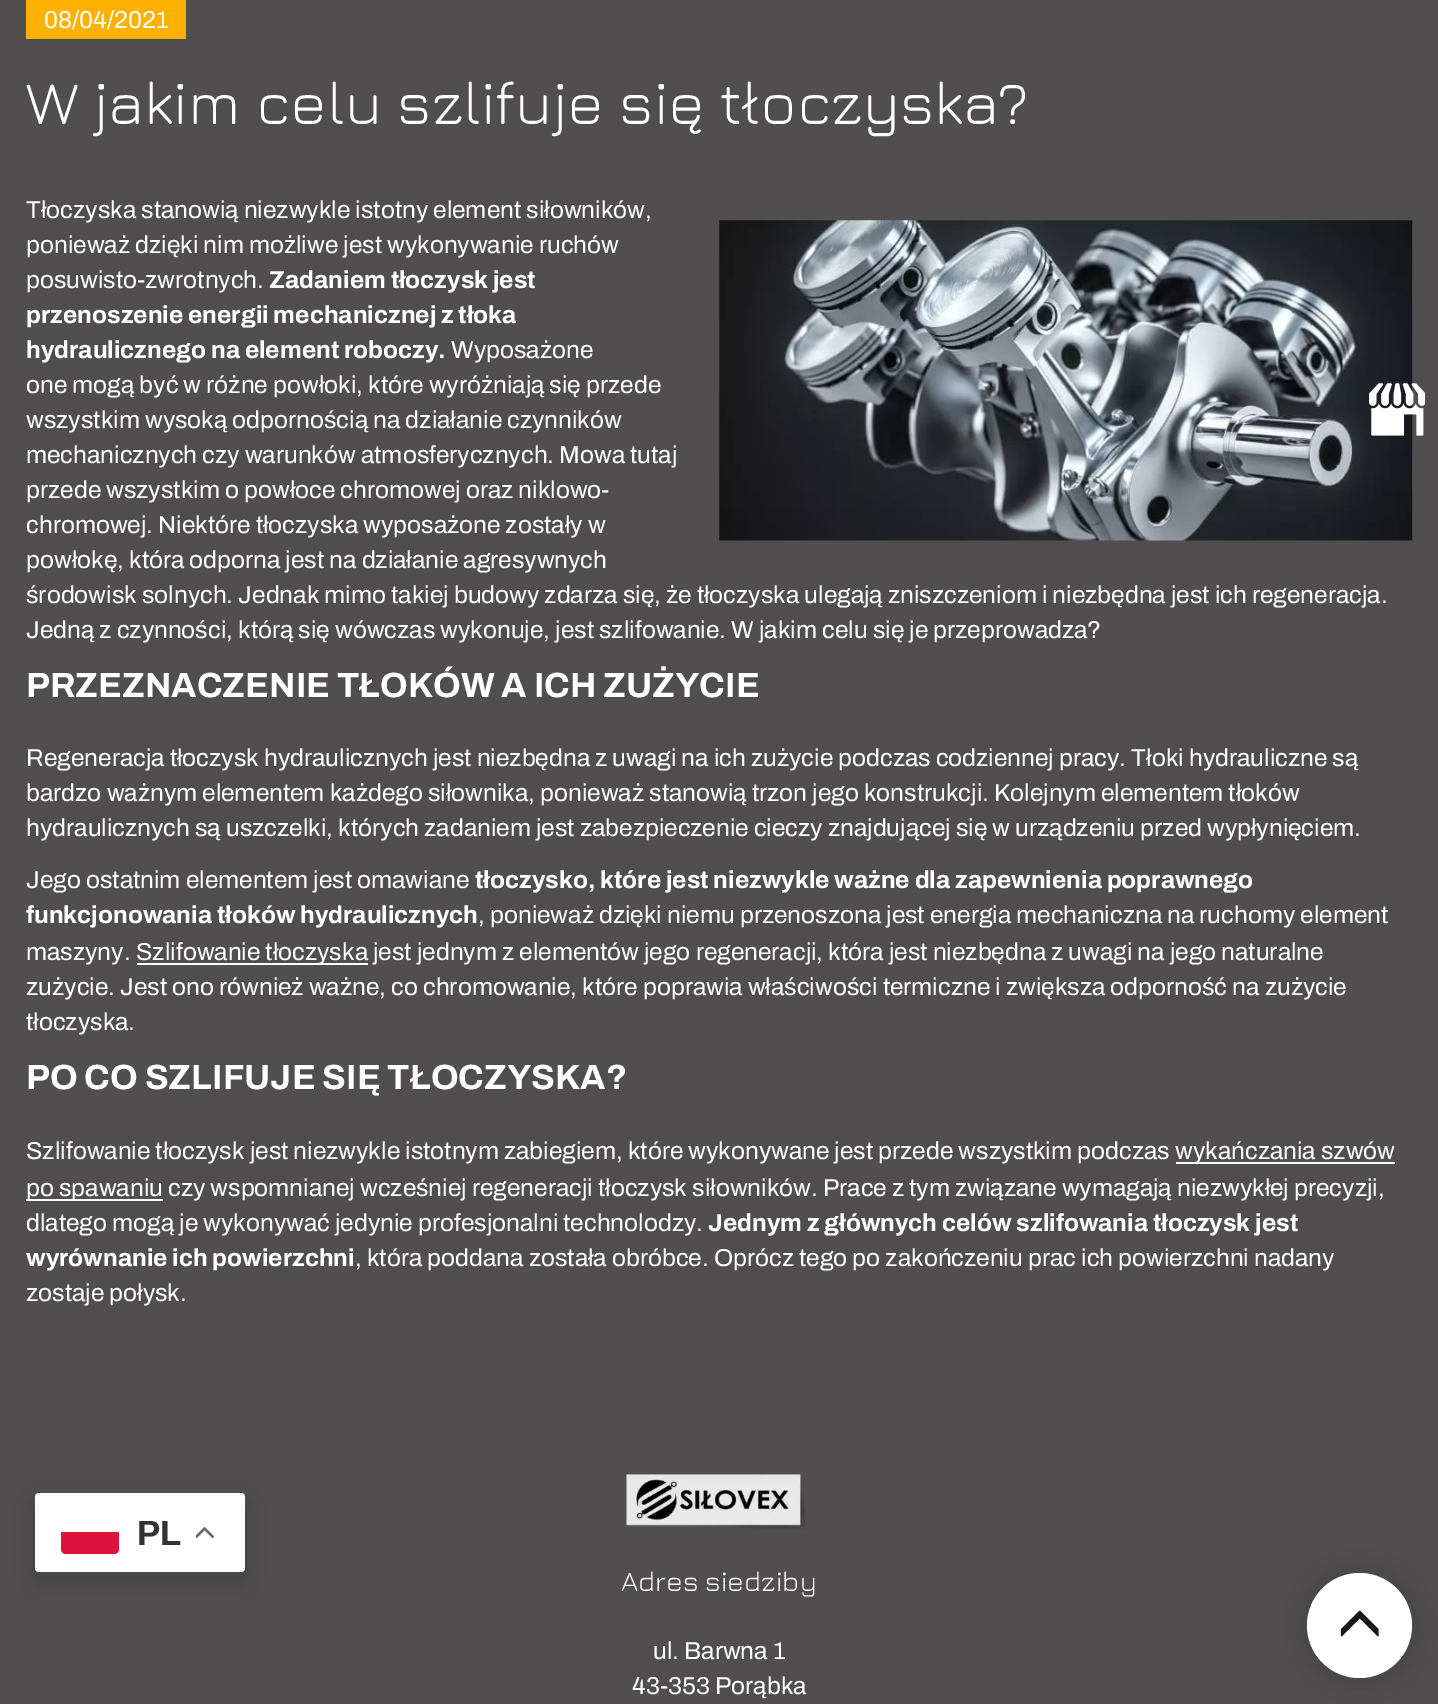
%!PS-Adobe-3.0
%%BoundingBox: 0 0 1438 1704
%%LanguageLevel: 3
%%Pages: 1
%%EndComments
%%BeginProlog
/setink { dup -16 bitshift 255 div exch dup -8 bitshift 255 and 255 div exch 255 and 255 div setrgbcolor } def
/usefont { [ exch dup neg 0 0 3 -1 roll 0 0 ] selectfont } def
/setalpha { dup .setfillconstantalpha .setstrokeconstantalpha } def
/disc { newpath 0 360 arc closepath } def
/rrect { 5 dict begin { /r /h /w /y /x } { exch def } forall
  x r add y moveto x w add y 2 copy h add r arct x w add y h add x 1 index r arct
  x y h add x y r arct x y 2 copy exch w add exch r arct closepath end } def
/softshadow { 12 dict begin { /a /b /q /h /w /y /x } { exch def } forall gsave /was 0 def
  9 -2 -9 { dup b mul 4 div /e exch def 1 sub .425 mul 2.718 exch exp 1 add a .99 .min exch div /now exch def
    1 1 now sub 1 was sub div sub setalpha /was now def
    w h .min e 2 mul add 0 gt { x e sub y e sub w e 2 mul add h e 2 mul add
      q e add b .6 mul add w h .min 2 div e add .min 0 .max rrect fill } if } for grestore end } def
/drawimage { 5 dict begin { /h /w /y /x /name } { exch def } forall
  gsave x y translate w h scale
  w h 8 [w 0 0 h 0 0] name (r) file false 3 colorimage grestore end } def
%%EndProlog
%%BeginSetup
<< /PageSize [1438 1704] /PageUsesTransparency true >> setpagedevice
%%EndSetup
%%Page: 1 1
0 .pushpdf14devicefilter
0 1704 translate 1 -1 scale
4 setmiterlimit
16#504E4F setink
0 0 1438 1704 rectfill
16#FFB102 setink
26 0 160 39 rectfill
/Archivo-Regular 24.5 usefont
16#FFFFFF setink
44 28 moveto (08/04/2021) show
/Jura-Regular 61.25 usefont
26 124 moveto (W jakim celu szlifuje się tłoczyska?) show
/Archivo-Regular 24.5 usefont
[
    [(Tłoczyska stanowią niezwykle istotny element siłowników,) 26 218]
    [(ponieważ dzięki nim możliwe jest wykonywanie ruchów) 26 253]
    [(posuwisto-zwrotnych.) 26 288]
] { aload pop moveto show } forall
/Archivo-Bold 24.5 usefont
[
    [(Zadaniem tłoczysk jest) 269 288]
    [(przenoszenie energii mechanicznej z tłoka) 26 323]
    [(hydraulicznego na element roboczy.) 26 358]
] { aload pop moveto show } forall
/Archivo-Regular 24.5 usefont
[
    [(Wyposażone) 451 358]
    [(one mogą być w różne powłoki, które wyróżniają się przede) 26 393]
    [(wszystkim wysoką odpornością na działanie czynników) 26 428]
    [(mechanicznych czy warunków atmosferycznych. Mowa tutaj) 26 463]
    [(przede wszystkim o powłoce chromowej oraz niklowo-) 26 498]
    [(chromowej. Niektóre tłoczyska wyposażone zostały w) 26 533]
    [(powłokę, która odporna jest na działanie agresywnych) 26 568]
    [(środowisk solnych. Jednak mimo takiej budowy zdarza się, że tłoczyska ulegają zniszczeniom i niezbędna jest ich regeneracja.) 26 603]
    [(Jedną z czynności, którą się wówczas wykonuje, jest szlifowanie. W jakim celu się je przeprowadza?) 26 638]
] { aload pop moveto show } forall
(img1.raw) 719 220 694 321 drawimage
/Archivo-Bold 35 usefont
26 697 moveto (PRZEZNACZENIE TŁOKÓW A ICH ZUŻYCIE) show
/Archivo-Regular 24.5 usefont
[
    [(Regeneracja tłoczysk hydraulicznych jest niezbędna z uwagi na ich zużycie podczas codziennej pracy. Tłoki hydrauliczne są) 26 766]
    [(bardzo ważnym elementem każdego siłownika, ponieważ stanowią trzon jego konstrukcji. Kolejnym elementem tłoków) 26 801]
    [(hydraulicznych są uszczelki, których zadaniem jest zabezpieczenie cieczy znajdującej się w urządzeniu przed wypłynięciem.) 26 836]
    [(Jego ostatnim elementem jest omawiane) 26 888]
] { aload pop moveto show } forall
/Archivo-Bold 24.5 usefont
475 888 moveto (tłoczysko, które jest niezwykle ważne dla zapewnienia poprawnego) show
26 923 moveto (funkcjonowania tłoków hydraulicznych) show
/Archivo-Regular 24.5 usefont
478 923 moveto (, ponieważ dzięki niemu przenoszona jest energia mechaniczna na ruchomy element) show
26 960 moveto (maszyny.) show
137 963 231 2 rectfill
[
    [(Szlifowanie tłoczyska jest jednym z elementów jego regeneracji, która jest niezbędna z uwagi na jego naturalne) 136 960]
    [(zużycie. Jest ono również ważne, co chromowanie, które poprawia właściwości termiczne i zwiększa odporność na zużycie) 26 995]
    [(tłoczyska.) 26 1030]
] { aload pop moveto show } forall
/Archivo-Bold 35 usefont
26 1089 moveto (PO CO SZLIFUJE SIĘ TŁOCZYSKA?) show
/Archivo-Regular 24.5 usefont
26 1159 moveto (Szlifowanie tłoczysk jest niezwykle istotnym zabiegiem, które wykonywane jest przede wszystkim podczas) show
1176 1162 219 2 rectfill
1175 1159 moveto (wykańczania szwów) show
26 1199 137 2 rectfill
26 1196 moveto (po spawaniu czy wspomnianej wcześniej regeneracji tłoczysk siłowników. Prace z tym związane wymagają niezwykłej precyzji,) show
26 1231 moveto (dlatego mogą je wykonywać jedynie profesjonalni technolodzy.) show
/Archivo-Bold 24.5 usefont
708 1231 moveto (Jednym z głównych celów szlifowania tłoczysk jest) show
26 1266 moveto (wyrównanie ich powierzchni) show
/Archivo-Regular 24.5 usefont
355 1266 moveto (, która poddana została obróbce. Oprócz tego po zakończeniu prac ich powierzchni nadany) show
26 1301 moveto (zostaje połysk.) show
16#000000 setink
35 1502 210 78 4 13 0.15 softshadow
16#FFFFFF setink
35 1493 210 79 4 rrect fill
16#DC143C setink
61 1532 moveto 119 1532 lineto 119 1549 lineto 119 1552 117 1554 114 1554 curveto 66 1554 lineto 63 1554 61 1552 61 1549 curveto closepath fill
/LiberationSans-Bold 35 usefont
16#333333 setink
137 1545 moveto (PL) show
(img2.raw) 196 1527 19 12 drawimage
(img3.raw) 1369 383 56 53 drawimage
(img4.raw) 626 1474 180 55 drawimage
/Jura-Regular 28 usefont
16#FFFFFF setink
621 1591 moveto (Adres siedziby) show
/Archivo-Regular 24.5 usefont
653 1659 moveto (ul. Barwna 1) show
632 1694 moveto (43-353 Porąbka) show
16#000000 setink
1306 1572 108 108 54 14 0.15 softshadow
16#FFFFFF setink
1359.5 1625.5 52.5 disc fill
(img5.raw) 1340 1610 39 27 drawimage
.poppdf14devicefilter showpage
%%EOF
